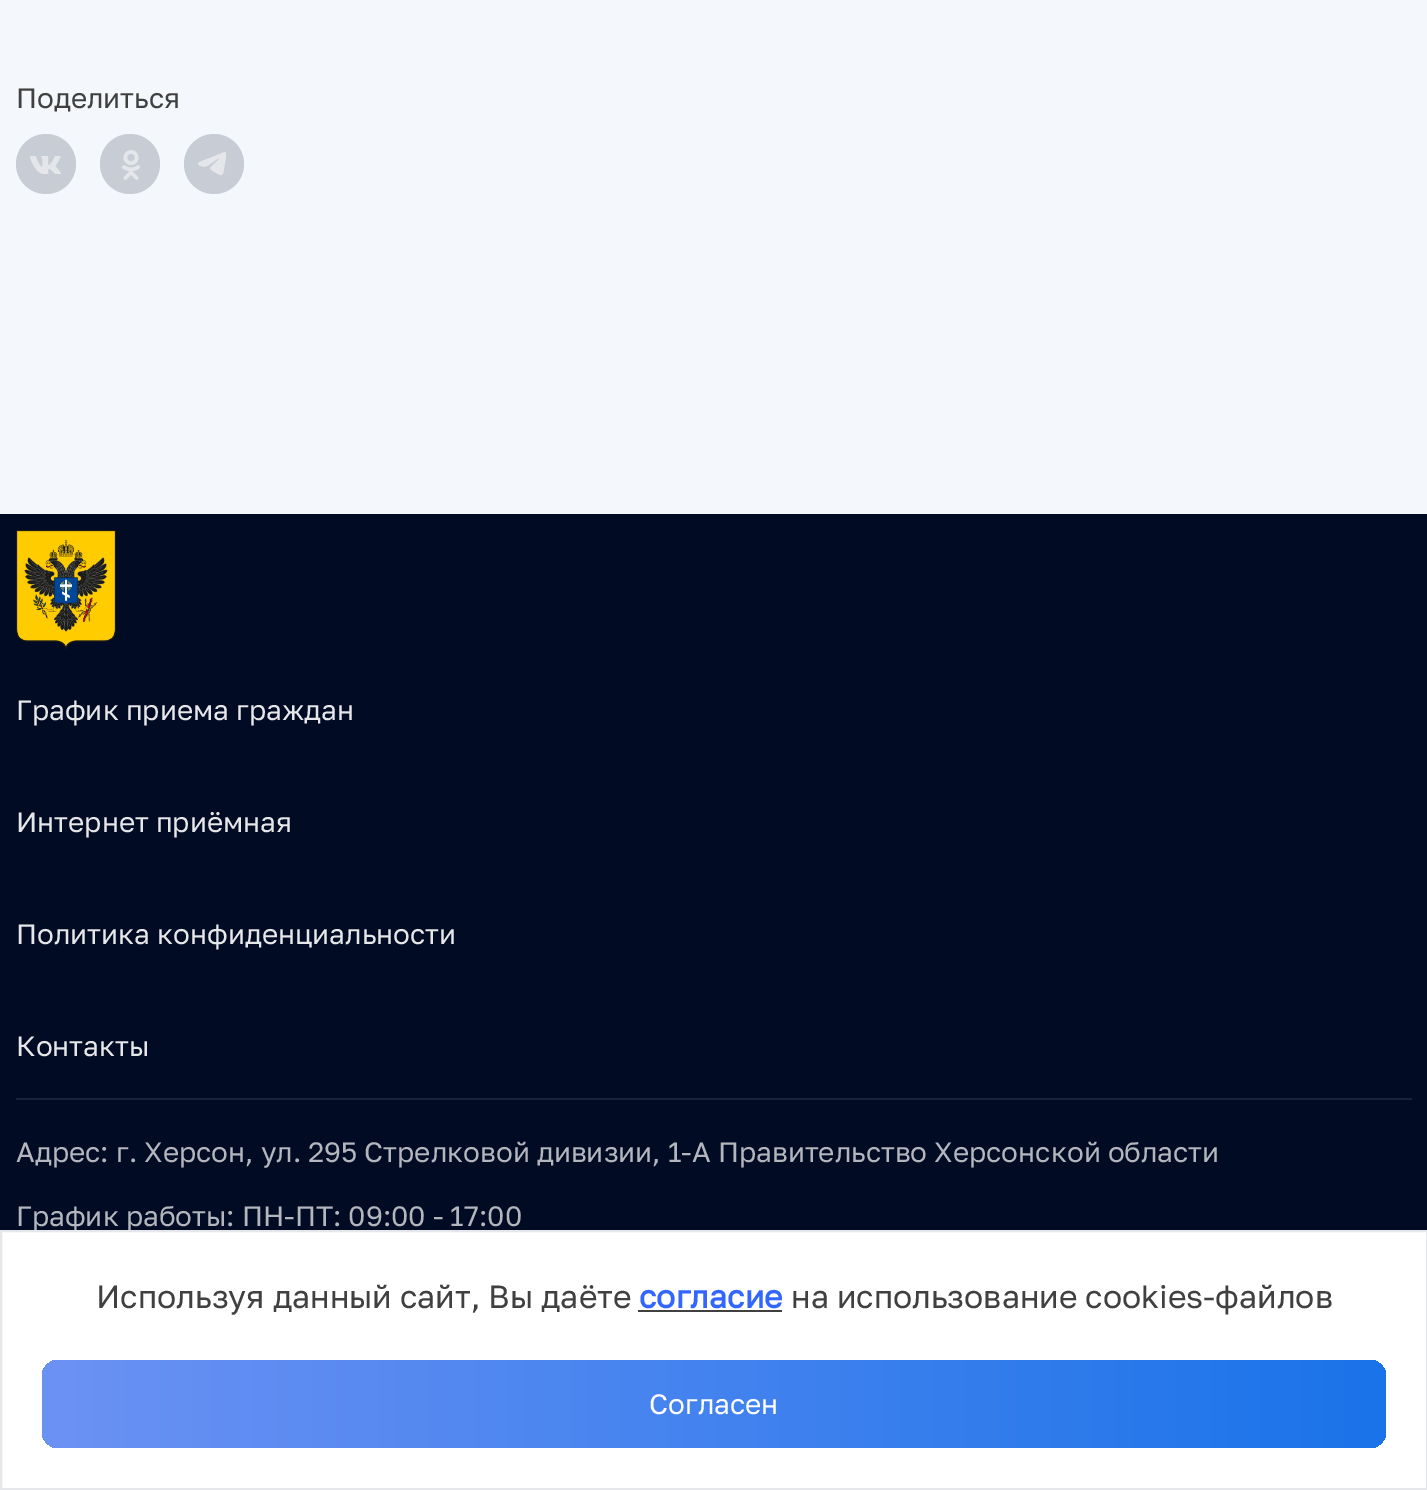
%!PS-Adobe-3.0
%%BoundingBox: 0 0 1427 1490
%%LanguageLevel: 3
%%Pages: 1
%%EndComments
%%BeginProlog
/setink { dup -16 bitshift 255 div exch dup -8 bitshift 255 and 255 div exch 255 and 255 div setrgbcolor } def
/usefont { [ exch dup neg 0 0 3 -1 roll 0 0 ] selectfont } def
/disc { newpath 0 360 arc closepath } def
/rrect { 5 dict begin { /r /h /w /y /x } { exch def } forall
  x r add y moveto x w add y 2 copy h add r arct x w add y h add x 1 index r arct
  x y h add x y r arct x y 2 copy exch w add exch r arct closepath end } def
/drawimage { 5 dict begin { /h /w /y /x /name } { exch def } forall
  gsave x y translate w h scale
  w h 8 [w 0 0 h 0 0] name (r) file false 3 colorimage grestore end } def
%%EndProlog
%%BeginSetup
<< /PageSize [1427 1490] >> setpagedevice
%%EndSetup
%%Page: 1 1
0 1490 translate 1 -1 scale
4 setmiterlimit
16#F4F7FB setink
0 0 1427 1490 rectfill
/GolosText-Regular 28 usefont
16#404040 setink
16 108 moveto (Поделиться) show
16#C8CDD5 setink
46 164 30 disc fill
(img1.raw) 30 156 31 18 drawimage
130 164 30 disc fill
(img2.raw) 122 150 18 30 drawimage
214 164 30 disc fill
(img3.raw) 198 152 28 24 drawimage
16#010B23 setink
0 514 1427 716 rectfill
(img4.raw) 16 530 100 119 drawimage
16#E6E7E9 setink
[
    [(График приема граждан) 16 720]
    [(Интернет приёмная) 16 832]
    [(Политика конфиденциальности) 16 944]
    [(Контакты) 16 1056]
] { aload pop moveto show } forall
16#1A2339 setink
16 1098 1396 2 rectfill
16#B3B6BD setink
16 1162 moveto (Адрес: г. Херсон, ул. 295 Стрелковой дивизии, 1-А Правительство Херсонской области) show
16 1226 moveto (График работы: ПН-ПТ: 09:00 - 17:00) show
16#FFFFFF setink
1 1231 moveto 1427 1231 lineto 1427 1489 lineto 1 1489 lineto closepath gsave fill grestore
16#E5E7EB setink
2 setlinewidth
stroke
/GolosText-Regular 32 usefont
16#404040 setink
96 1308 moveto (Используя данный сайт, Вы даёте) show
/GolosText-Bold 32 usefont
16#3366FF setink
639 1308 moveto (согласие) show
16#404040 setink
638 1310 144 2 rectfill
/GolosText-Regular 32 usefont
791 1308 moveto (на использование cookies-файлов) show
gsave 42 1360 1344 88 16 rrect clip newpath
<< /ShadingType 2 /ColorSpace /DeviceRGB /Coords [42 1404 1386 1404] /Extend [true true] /Function << /FunctionType 2 /Domain [0 1] /C0 [0.424 0.573 0.957] /C1 [0.102 0.451 0.914] /N 1 >> >> shfill grestore
/GolosText-Regular 28 usefont
16#FFFFFF setink
649 1414 moveto (Согласен) show
showpage
%%EOF
